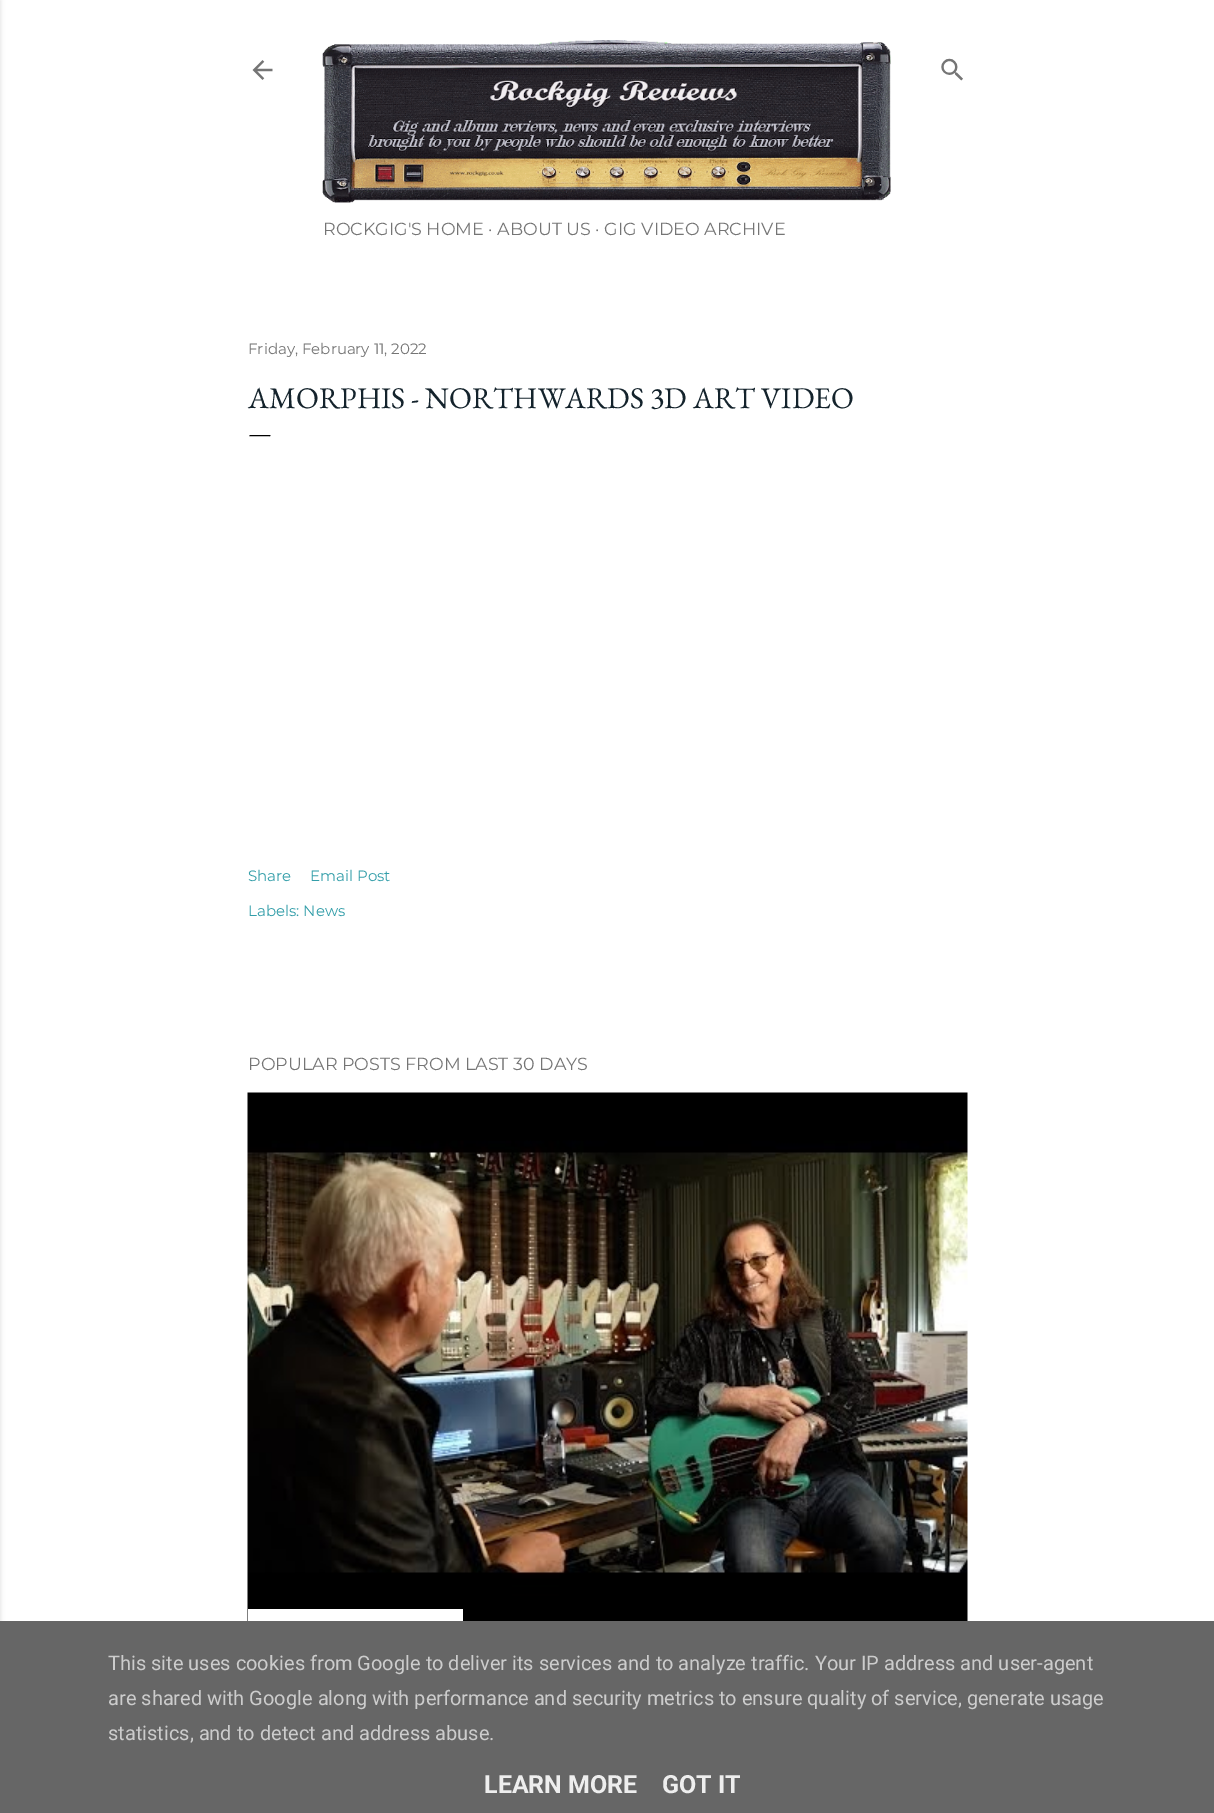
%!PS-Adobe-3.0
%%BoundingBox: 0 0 1214 1813
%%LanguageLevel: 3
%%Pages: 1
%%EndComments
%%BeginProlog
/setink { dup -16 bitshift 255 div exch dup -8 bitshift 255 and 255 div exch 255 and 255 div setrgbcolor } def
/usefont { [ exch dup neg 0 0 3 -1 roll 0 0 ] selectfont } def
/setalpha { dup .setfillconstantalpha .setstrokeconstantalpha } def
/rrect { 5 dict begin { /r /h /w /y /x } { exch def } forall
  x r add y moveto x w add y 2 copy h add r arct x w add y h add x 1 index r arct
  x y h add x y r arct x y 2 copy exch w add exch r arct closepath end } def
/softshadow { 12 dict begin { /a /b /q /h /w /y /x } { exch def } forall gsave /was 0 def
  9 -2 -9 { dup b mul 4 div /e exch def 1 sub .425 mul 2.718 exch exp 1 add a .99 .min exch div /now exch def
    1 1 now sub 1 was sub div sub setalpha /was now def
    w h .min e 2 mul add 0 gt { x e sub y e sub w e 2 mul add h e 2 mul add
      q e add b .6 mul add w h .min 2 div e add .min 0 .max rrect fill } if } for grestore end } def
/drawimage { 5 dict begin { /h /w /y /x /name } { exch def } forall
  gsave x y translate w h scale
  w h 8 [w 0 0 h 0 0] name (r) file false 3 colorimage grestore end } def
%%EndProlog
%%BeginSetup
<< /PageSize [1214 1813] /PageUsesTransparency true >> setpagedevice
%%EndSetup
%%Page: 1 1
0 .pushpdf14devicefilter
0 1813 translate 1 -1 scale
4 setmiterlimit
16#FFFFFF setink
0 0 1214 1813 rectfill
16#000000 setink
-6 0 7 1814 0 2 0.1 softshadow
(img1.raw) 252 60 21 20 drawimage
(img2.raw) 941 58 22 23 drawimage
(img3.raw) 322 40 569 163 drawimage
/Montserrat-Regular 17.5 usefont
16#757575 setink
323 235 moveto (ROCKGIG'S HOME · ABOUT US · GIG VIDEO ARCHIVE) show
/Montserrat-Regular 15 usefont
248 354 moveto (Friday, February 11, 2022) show
/EBGaramond-Regular 30 usefont
16#14232C setink
248 408 moveto (AMORPHIS - NORTHWARDS 3D ART VIDEO) show
/EBGaramond-Regular 25 usefont
16#000000 setink
248 441 moveto (—) show
/Montserrat-Regular 15 usefont
16#339EA9 setink
[
    [(Share) 248 881]
    [(Email Post) 310 881]
    [(Labels: News) 248 916]
] { aload pop moveto show } forall
/Montserrat-Regular 17.5 usefont
16#757575 setink
248 1070 moveto (POPULAR POSTS FROM LAST 30 DAYS) show
(img4.raw) 247 1092 721 529 drawimage
16#FFFFFF setink
248 1609 215 12 rectfill
16#666666 setink
0 1621 1214 192 rectfill
/Roboto-Regular 20 usefont
16#CCCCCC setink
[
    [(This site uses cookies from Google to deliver its services and to analyze traffic. Your IP address and user-agent) 108 1670]
    [(are shared with Google along with performance and security metrics to ensure quality of service, generate usage) 108 1705]
    [(statistics, and to detect and address abuse.) 108 1740]
] { aload pop moveto show } forall
/Roboto-Bold 25 usefont
16#EEEEEE setink
484 1793 moveto (LEARN MORE) show
662 1793 moveto (GOT IT) show
.poppdf14devicefilter showpage
%%EOF
